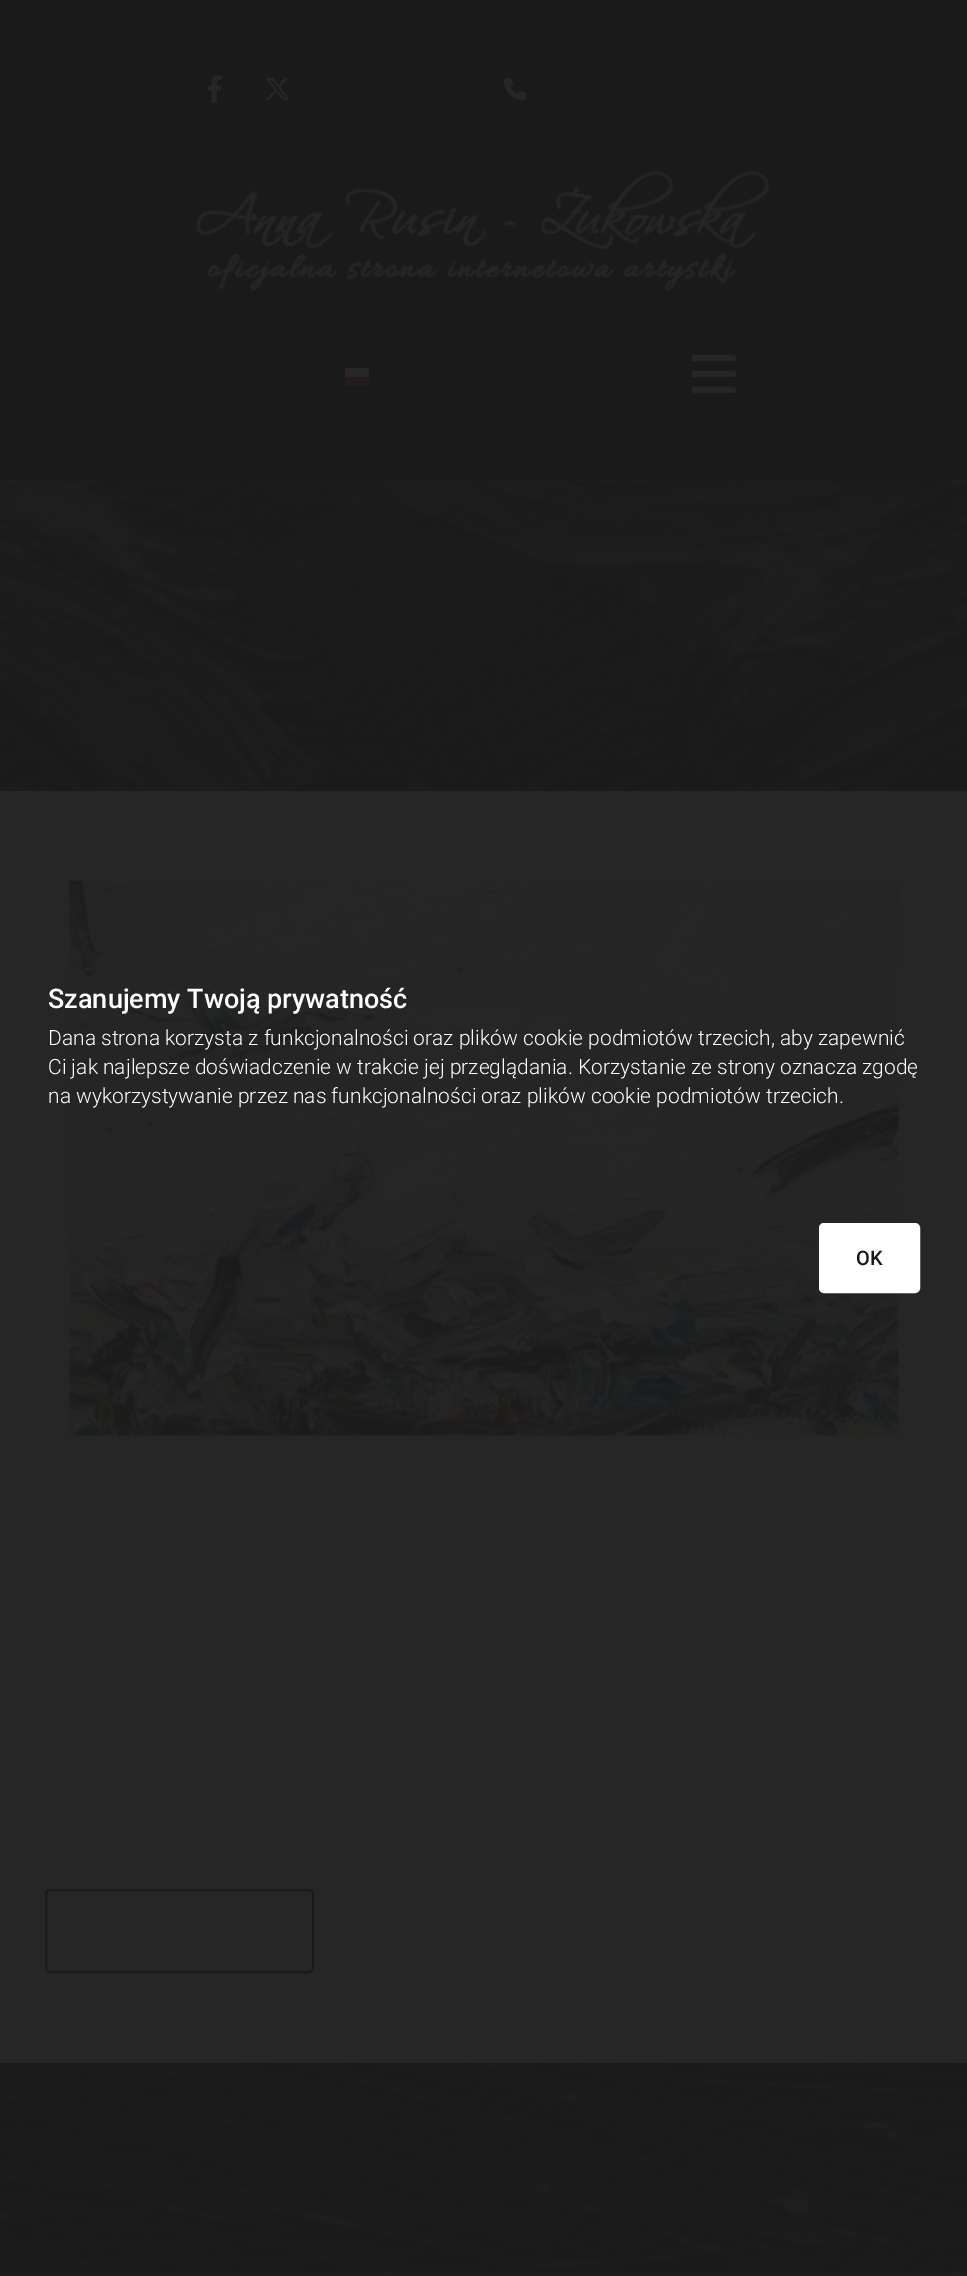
%!PS-Adobe-3.0
%%BoundingBox: 0 0 967 2276
%%LanguageLevel: 3
%%Pages: 1
%%EndComments
%%BeginProlog
/setink { dup -16 bitshift 255 div exch dup -8 bitshift 255 and 255 div exch 255 and 255 div setrgbcolor } def
/usefont { [ exch dup neg 0 0 3 -1 roll 0 0 ] selectfont } def
/setalpha { dup .setfillconstantalpha .setstrokeconstantalpha } def
/rrect { 5 dict begin { /r /h /w /y /x } { exch def } forall
  x r add y moveto x w add y 2 copy h add r arct x w add y h add x 1 index r arct
  x y h add x y r arct x y 2 copy exch w add exch r arct closepath end } def
/drawimage { 5 dict begin { /h /w /y /x /name } { exch def } forall
  gsave x y translate w h scale
  w h 8 [w 0 0 h 0 0] name (r) file false 3 colorimage grestore end } def
%%EndProlog
%%BeginSetup
<< /PageSize [967 2276] /PageUsesTransparency true >> setpagedevice
%%EndSetup
%%Page: 1 1
0 .pushpdf14devicefilter
0 2276 translate 1 -1 scale
4 setmiterlimit
16#262626 setink
0 0 967 2276 rectfill
16#1A1A1A setink
0 0 967 480 rectfill
(img1.raw) 207 75 15 28 drawimage
(img2.raw) 265 77 25 23 drawimage
(img3.raw) 504 77 23 24 drawimage
(img4.raw) 195 170 576 122 drawimage
16#262626 setink
345 368 24 9 rectfill
16#251B1D setink
345 377 24 9 rectfill
(img5.raw) 691 354 46 39 drawimage
(img6.raw) 0 480 967 311 drawimage
(img7.raw) 67 880 832 556 drawimage
16#1A1A1A setink
2 setlinewidth
46 1890 267 82 4 rrect stroke
(img8.raw) 0 2062 967 214 drawimage
0.82 setalpha
16#262626 setink
0 2062 967 1 rectfill
/Roboto-Medium 27 usefont
1 setalpha
16#FFFFFF setink
48 1008 moveto (Szanujemy Twoją prywatność) show
/Roboto-Light 21 usefont
[
    [(Dana strona korzysta z funkcjonalności oraz plików cookie podmiotów trzecich, aby zapewnić) 48 1045]
    [(Ci jak najlepsze doświadczenie w trakcie jej przeglądania. Korzystanie ze strony oznacza zgodę) 48 1074]
    [(na wykorzystywanie przez nas funkcjonalności oraz plików cookie podmiotów trzecich.) 48 1103]
] { aload pop moveto show } forall
820 1224 99 68 4 rrect gsave fill grestore
stroke
/Roboto-Medium 20 usefont
16#181818 setink
856 1265 moveto (OK) show
.poppdf14devicefilter showpage
%%EOF
